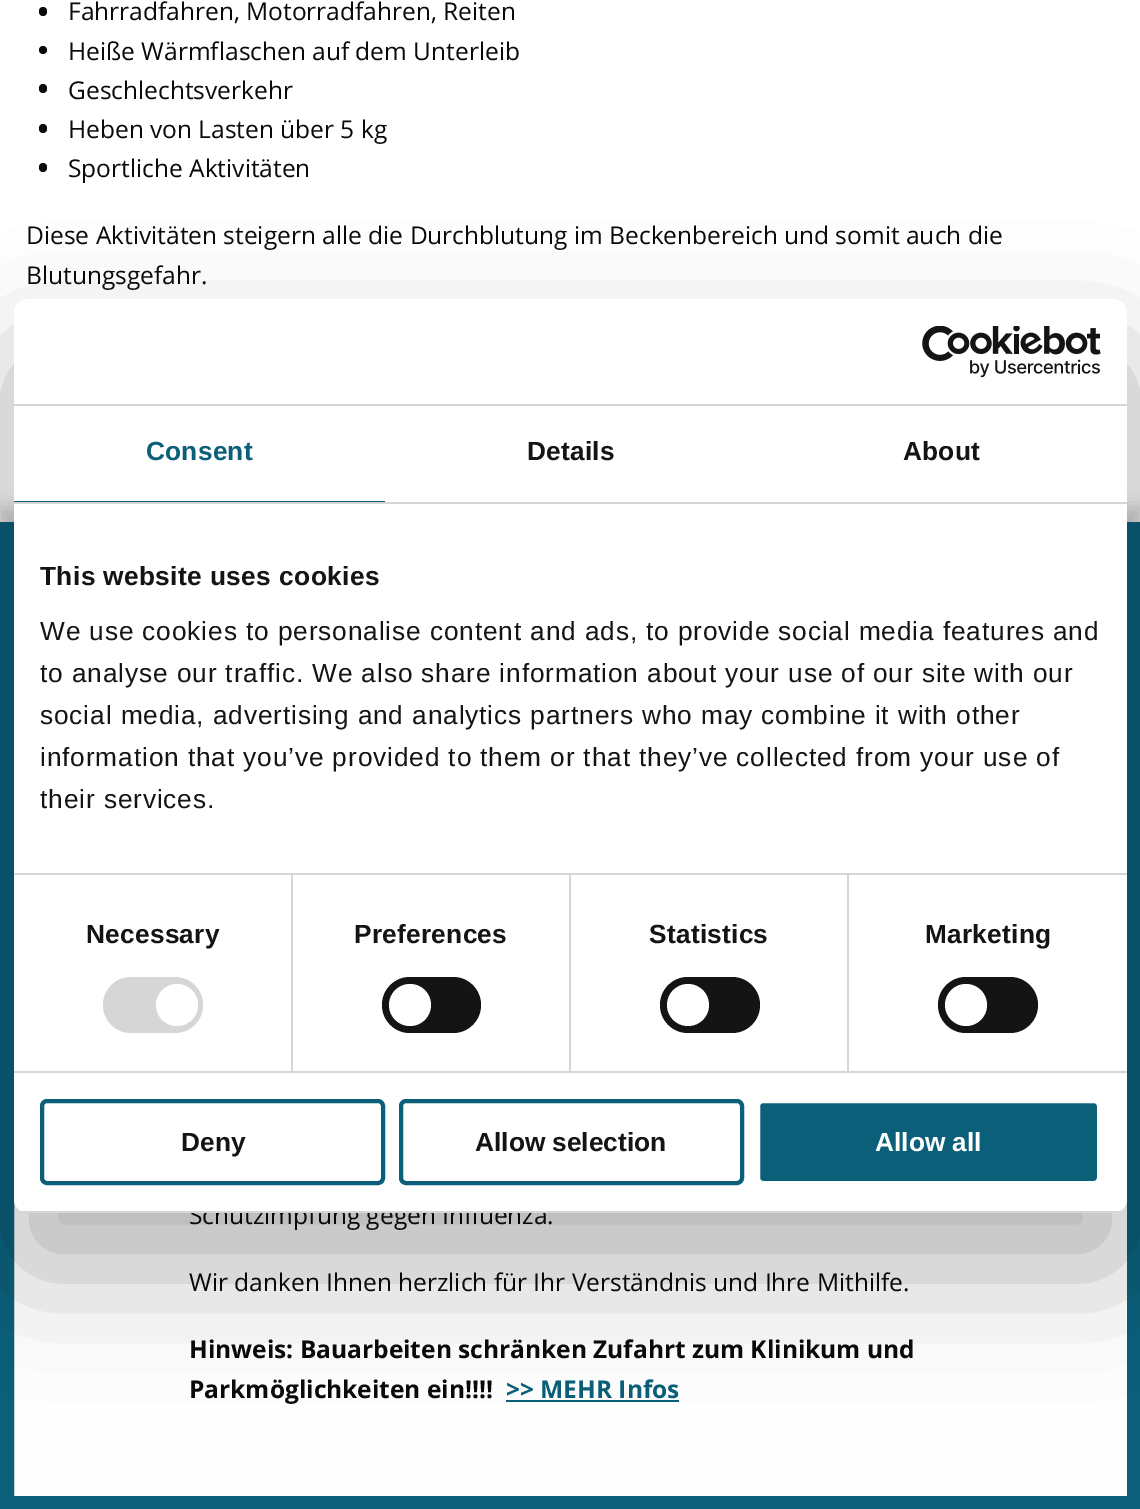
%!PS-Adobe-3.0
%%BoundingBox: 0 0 1140 1509
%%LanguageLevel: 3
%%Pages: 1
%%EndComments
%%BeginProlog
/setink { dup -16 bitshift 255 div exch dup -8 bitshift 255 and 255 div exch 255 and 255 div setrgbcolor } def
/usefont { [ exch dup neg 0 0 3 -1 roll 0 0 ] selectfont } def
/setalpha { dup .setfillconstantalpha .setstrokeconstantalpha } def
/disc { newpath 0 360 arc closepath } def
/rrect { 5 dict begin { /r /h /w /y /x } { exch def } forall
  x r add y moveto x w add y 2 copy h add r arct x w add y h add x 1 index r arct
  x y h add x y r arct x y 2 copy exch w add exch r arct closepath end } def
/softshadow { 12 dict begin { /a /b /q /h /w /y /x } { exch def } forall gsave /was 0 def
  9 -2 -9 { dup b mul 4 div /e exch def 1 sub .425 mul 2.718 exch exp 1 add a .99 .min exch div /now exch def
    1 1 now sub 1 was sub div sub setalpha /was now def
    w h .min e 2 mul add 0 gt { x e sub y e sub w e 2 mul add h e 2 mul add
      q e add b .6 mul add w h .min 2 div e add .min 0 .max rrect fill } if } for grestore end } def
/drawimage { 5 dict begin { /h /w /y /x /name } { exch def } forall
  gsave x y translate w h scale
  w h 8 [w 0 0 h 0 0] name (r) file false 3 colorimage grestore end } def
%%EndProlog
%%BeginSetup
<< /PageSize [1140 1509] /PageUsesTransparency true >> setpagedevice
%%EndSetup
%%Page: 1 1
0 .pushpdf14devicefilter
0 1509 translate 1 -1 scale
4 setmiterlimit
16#FFFFFF setink
0 0 1140 1509 rectfill
16#0A0A0A setink
39 7 8 9 4 rrect fill
/OpenSans-Regular 24.5 usefont
68 20 moveto (Fahrradfahren, Motorradfahren, Reiten) show
43 50 4 disc fill
68 60 moveto (Heiße Wärmflaschen auf dem Unterleib) show
39 84 8 9 4 rrect fill
68 99 moveto (Geschlechtsverkehr) show
39 124 8 9 4 rrect fill
68 138 moveto (Heben von Lasten über 5 kg) show
39 163 8 9 4 rrect fill
[
    [(Sportliche Aktivitäten) 68 177]
    [(Diese Aktivitäten steigern alle die Durchblutung im Beckenbereich und somit auch die) 26 244]
    [(Blutungsgefahr.) 26 284]
] { aload pop moveto show } forall
0 508 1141 988 0 9 0.2 softshadow
16#FEFEFE setink
14 1199 1113 297 rectfill
16#0B5F79 setink
14 setlinewidth
7 529 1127 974 rectstroke
16#0A0A0A setink
189 1224 moveto (Schutzimpfung gegen Influenza.) show
189 1291 moveto (Wir danken Ihnen herzlich für Ihr Verständnis und Ihre Mithilfe.) show
/OpenSans-Bold 24.5 usefont
189 1358 moveto (Hinweis: Bauarbeiten schränken Zufahrt zum Klinikum und) show
189 1398 moveto (Parkmöglichkeiten ein!!!!) show
16#0B5F79 setink
506 1398 moveto (>> MEHR Infos) show
506 1400 173 2 rectfill
16#000000 setink
14 355 1113 914 14 59.5 0.3 softshadow
16#FFFFFF setink
14 299 1113 914 14 rrect fill
16#D6D6D6 setink
14 404 1113 2 rectfill
(img1.raw) 922 326 179 52 drawimage
14 502 1113 2 rectfill
16#0B5F79 setink
14 501 371 1 rectfill
/LiberationSans-Bold 26.25 usefont
146 460 moveto 0.25 0 (Consent) ashow
16#141414 setink
527 460 moveto 0.25 0 (Details) ashow
903 460 moveto 0.25 0 (About) ashow
16#D6D6D6 setink
14 873 1113 2 rectfill
16#141414 setink
40 585 moveto 0.4 0 (This website uses cookies) ashow
/LiberationSans-Regular 26.25 usefont
40 640 moveto 0.88 0 (We use cookies to personalise content and ads, to provide social media features and) ashow
40 682 moveto 0.88 0 (to analyse our traffic. We also share information about your use of our site with our) ashow
40 724 moveto 0.88 0 (social media, advertising and analytics partners who may combine it with other) ashow
40 766 moveto 0.88 0 (information that you’ve provided to them or that they’ve collected from your use of) ashow
40 808 moveto 0.88 0 (their services.) ashow
16#D6D6D6 setink
14 1071 1113 2 rectfill
291 875 2 196 rectfill
/LiberationSans-Bold 26.25 usefont
16#141414 setink
86 943 moveto 0.25 0 (Necessary) ashow
16#D6D6D6 setink
103 977 100 56 28 rrect fill
16#FFFFFF setink
177 1005 21 disc fill
16#D6D6D6 setink
569 875 2 196 rectfill
16#141414 setink
354 943 moveto 0.25 0 (Preferences) ashow
382 977 99 56 28 rrect fill
16#FFFFFF setink
410 1005 21 disc fill
16#D6D6D6 setink
847 875 2 196 rectfill
16#141414 setink
649 943 moveto 0.25 0 (Statistics) ashow
660 977 100 56 28 rrect fill
16#FFFFFF setink
688 1005 21 disc fill
16#141414 setink
925 943 moveto 0.25 0 (Marketing) ashow
938 977 100 56 28 rrect fill
16#FFFFFF setink
966 1005 21 disc fill
gsave
14 299 1113 914 14 rrect clip newpath
16#D6D6D6 setink
14 1211 1113 2 rectfill
grestore
16#0B5F79 setink
4 setlinewidth
42 1101 341 82 5 rrect stroke
16#141414 setink
181 1151 moveto (Deny) show
16#0B5F79 setink
401 1101 341 82 5 rrect stroke
16#141414 setink
475 1151 moveto (Allow selection) show
16#0B5F79 setink
758 1101 341 82 5 rrect gsave fill grestore
16#FFFFFF setink
stroke
875 1151 moveto (Allow all) show
.poppdf14devicefilter showpage
%%EOF
